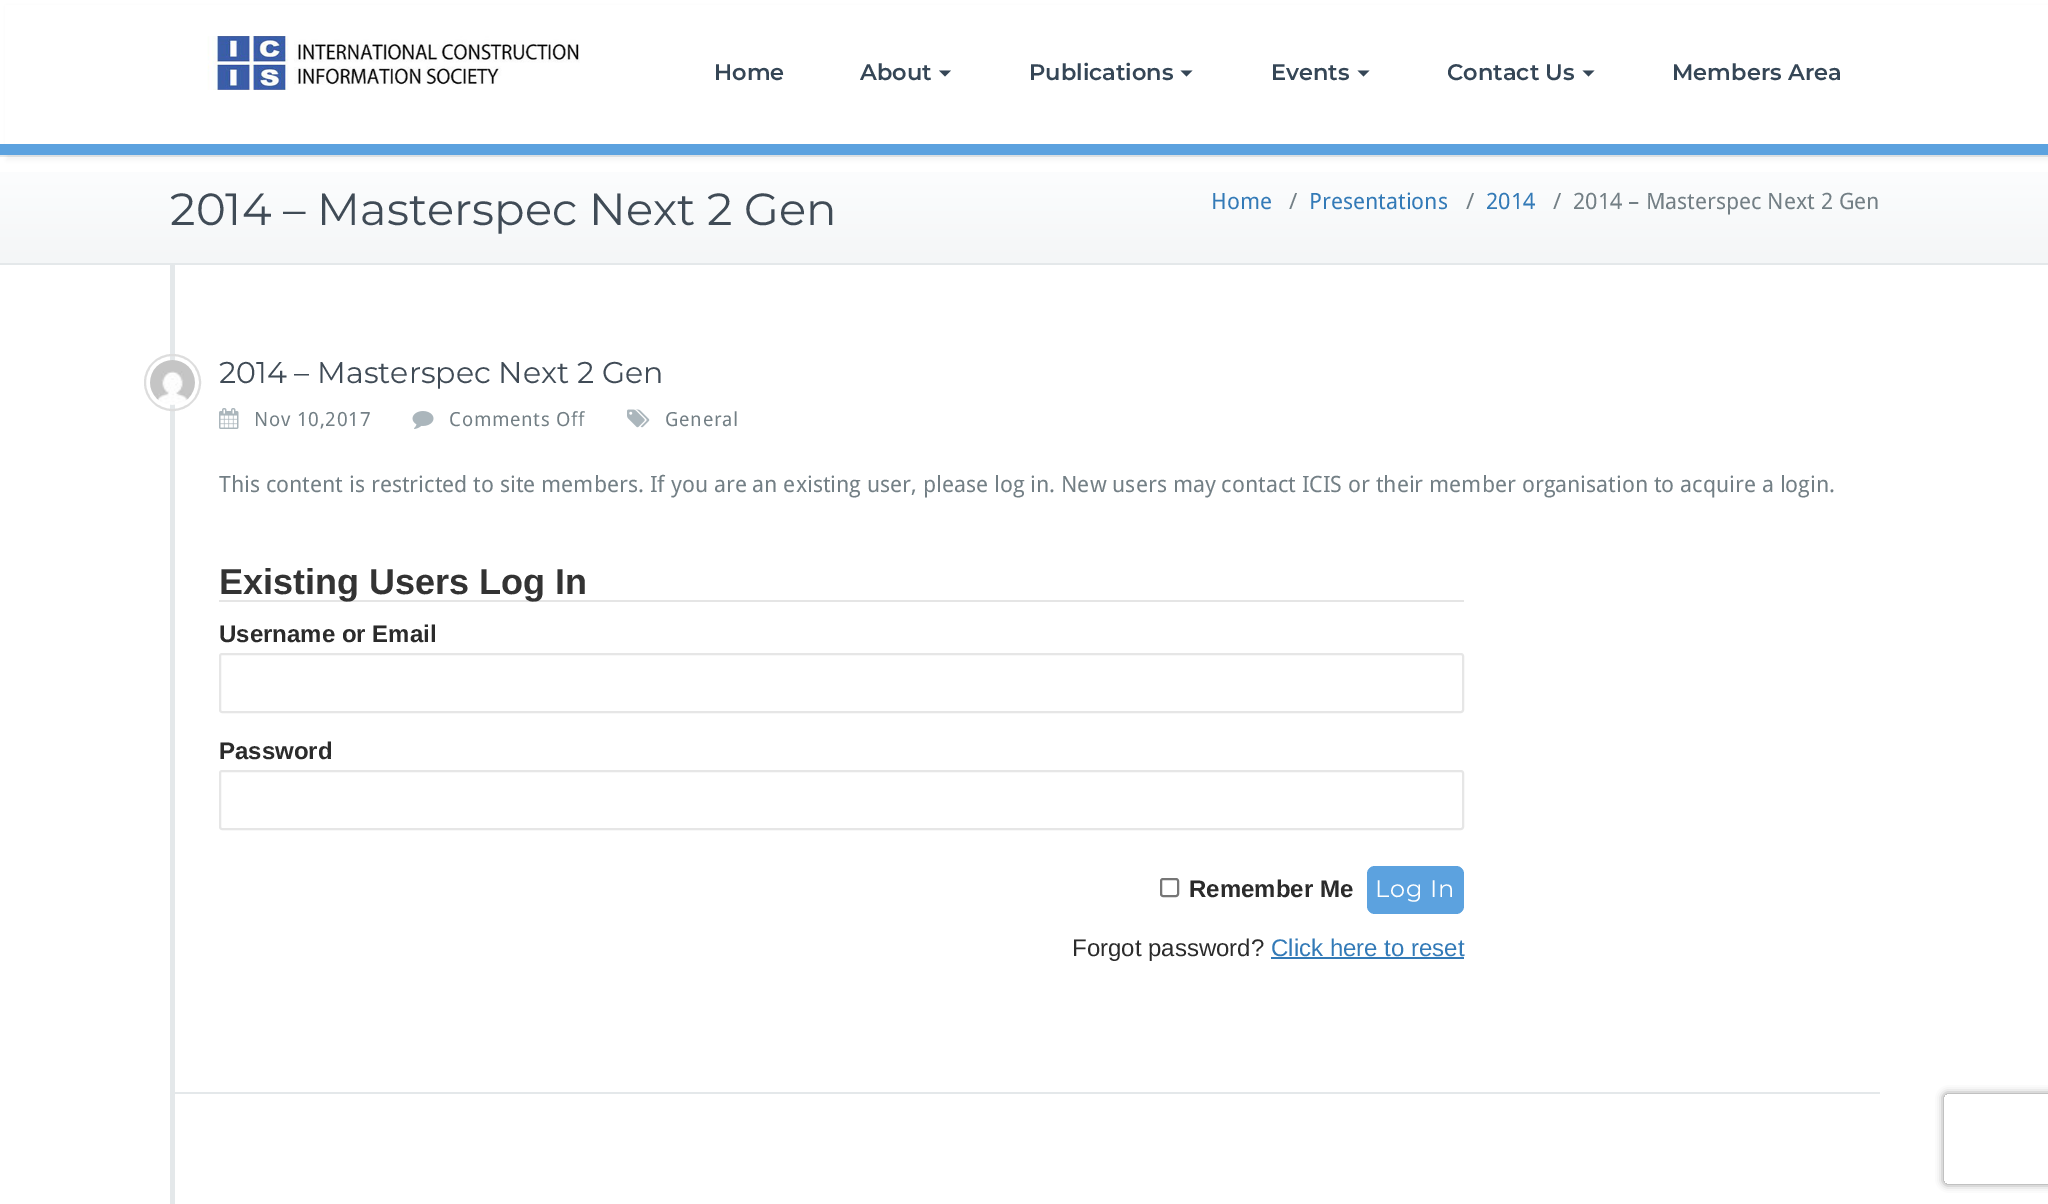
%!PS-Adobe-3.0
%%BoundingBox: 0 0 2048 1204
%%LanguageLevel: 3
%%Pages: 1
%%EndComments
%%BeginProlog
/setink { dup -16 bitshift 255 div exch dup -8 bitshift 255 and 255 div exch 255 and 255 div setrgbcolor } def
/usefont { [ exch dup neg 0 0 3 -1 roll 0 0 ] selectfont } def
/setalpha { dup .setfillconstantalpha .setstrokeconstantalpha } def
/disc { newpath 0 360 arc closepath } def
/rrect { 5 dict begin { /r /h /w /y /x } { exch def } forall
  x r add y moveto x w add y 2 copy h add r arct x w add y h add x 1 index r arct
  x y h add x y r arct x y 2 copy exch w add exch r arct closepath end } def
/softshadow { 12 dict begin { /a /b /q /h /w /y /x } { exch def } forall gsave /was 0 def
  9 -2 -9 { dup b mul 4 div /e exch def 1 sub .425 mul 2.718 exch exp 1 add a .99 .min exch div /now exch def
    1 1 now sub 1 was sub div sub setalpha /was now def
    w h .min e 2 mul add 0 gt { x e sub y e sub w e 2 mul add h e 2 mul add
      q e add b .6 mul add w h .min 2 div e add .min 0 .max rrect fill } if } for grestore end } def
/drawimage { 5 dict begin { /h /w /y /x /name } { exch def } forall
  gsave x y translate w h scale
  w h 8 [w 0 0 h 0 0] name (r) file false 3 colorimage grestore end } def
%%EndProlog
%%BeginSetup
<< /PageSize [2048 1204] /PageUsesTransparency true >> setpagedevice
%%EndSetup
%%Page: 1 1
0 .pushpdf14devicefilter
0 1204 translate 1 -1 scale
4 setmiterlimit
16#FFFFFF setink
0 0 2048 1204 rectfill
16#E4E8EA setink
0 155 2048 2 rectfill
16#000000 setink
6 6 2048 155 0 2 0.04 softshadow
16#FFFFFF setink
5 5 2043 139 rectfill
16#5CA2DF setink
0 144 2048 11 rectfill
(img1.raw) 207 36 373 54 drawimage
/Montserrat-SemiBold 22.5 usefont
16#354656 setink
714 80 moveto (Home) show
860 80 moveto (About) show
939 70.5 moveto 951 70.5 lineto 945 76.5 lineto closepath fill
1029 80 moveto (Publications) show
1180.5 70.5 moveto 1192.5 70.5 lineto 1186.5 76.5 lineto closepath fill
1271 80 moveto (Events) show
1357.5 70.5 moveto 1369.5 70.5 lineto 1363.5 76.5 lineto closepath fill
1447 80 moveto (Contact Us) show
1582.5 70.5 moveto 1594.5 70.5 lineto 1588.5 76.5 lineto closepath fill
1672 80 moveto (Members Area) show
gsave 0 172 moveto 2048 172 lineto 2048 263 lineto 0 263 lineto closepath clip newpath
<< /ShadingType 2 /ColorSpace /DeviceRGB /Coords [1025 156 1025 263] /Extend [true true] /Function << /FunctionType 2 /Domain [0 1] /C0 [0.996 0.996 1] /C1 [0.957 0.965 0.969] /N 1 >> >> shfill grestore
16#E4E8EA setink
0 263 2048 2 rectfill
/Montserrat-Regular 45 usefont
16#404B56 setink
170 225 moveto (2014 – Masterspec Next 2 Gen) show
/DroidSans-Regular 22.5 usefont
16#337AB7 setink
1211 209 moveto (Home) show
16#737F85 setink
1289 209 moveto (/) show
16#337AB7 setink
1309 209 moveto (Presentations) show
16#737F85 setink
1466 209 moveto (/) show
16#337AB7 setink
1486 209 moveto (2014) show
16#737F85 setink
1553 209 moveto (/) show
1573 209 moveto (2014 – Masterspec Next 2 Gen) show
16#E4E8EA setink
170 264 5 940 rectfill
174 1092 1706 2 rectfill
16#DDDDDD setink
2 setlinewidth
172.5 382.5 27.5 disc stroke
(img2.raw) 150 360 45 45 drawimage
/Montserrat-Regular 30 usefont
16#404B56 setink
219 383 moveto (2014 – Masterspec Next 2 Gen) show
(img3.raw) 219 408 20 21 drawimage
/DroidSans-Regular 19.5 usefont
16#737F85 setink
254 426 moveto 0.75 0 (Nov 10,2017) ashow
(img4.raw) 412 411 22 18 drawimage
449 426 moveto 0.75 0 (Comments Off) ashow
(img5.raw) 627 409 23 19 drawimage
665 426 moveto 0.75 0 (General) ashow
/DroidSans-Regular 22.5 usefont
219 492 moveto (This content is restricted to site members. If you are an existing user, please log in. New users may contact ICIS or their member organisation to acquire a login.) show
16#E5E5E5 setink
219 600 1245 2 rectfill
/LiberationSans-Bold 36 usefont
16#333333 setink
219 594 moveto (Existing Users Log In) show
/LiberationSans-Bold 24 usefont
16#2B2B2B setink
219 642 moveto (Username or Email) show
16#E6E6E6 setink
220 654 1243 58 2 rrect stroke
16#2B2B2B setink
219 759 moveto (Password) show
16#E6E6E6 setink
220 771 1243 58 2 rrect stroke
16#767676 setink
1161 879 17 17 2 rrect stroke
16#2B2B2B setink
1189 897 moveto (Remember Me) show
16#5CA2DF setink
1367 866 97 48 8 rrect fill
/Montserrat-Regular 24 usefont
16#FFFFFF setink
1375 897 moveto 0.75 0 (Log In) ashow
/LiberationSans-Regular 24 usefont
16#2B2B2B setink
1072 956 moveto (Forgot password?) show
16#337AB7 setink
1271 956 moveto (Click here to reset) show
1271 957 193 2 rectfill
gsave
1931 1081 moveto 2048 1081 lineto 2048 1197 lineto 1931 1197 lineto closepath 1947 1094 moveto 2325 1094 lineto 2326.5 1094 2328 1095.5 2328 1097 curveto 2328 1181 lineto 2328 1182.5 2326.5 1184 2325 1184 curveto 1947 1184 lineto 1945.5 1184 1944 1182.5 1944 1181 curveto 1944 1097 lineto 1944 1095.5 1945.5 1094 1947 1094 curveto closepath eoclip newpath
16#808080 setink
1944 1094 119 90 3 4 1 softshadow
grestore
.poppdf14devicefilter showpage
%%EOF
